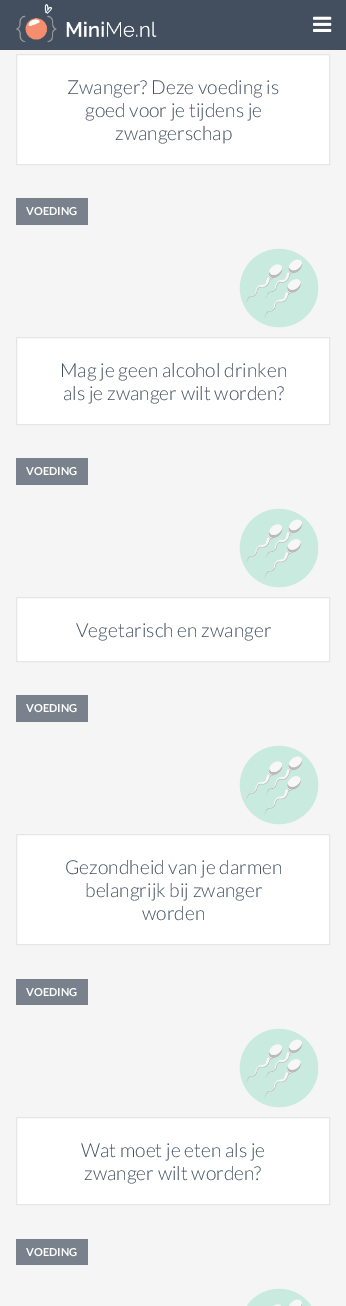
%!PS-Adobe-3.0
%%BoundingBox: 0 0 346 1306
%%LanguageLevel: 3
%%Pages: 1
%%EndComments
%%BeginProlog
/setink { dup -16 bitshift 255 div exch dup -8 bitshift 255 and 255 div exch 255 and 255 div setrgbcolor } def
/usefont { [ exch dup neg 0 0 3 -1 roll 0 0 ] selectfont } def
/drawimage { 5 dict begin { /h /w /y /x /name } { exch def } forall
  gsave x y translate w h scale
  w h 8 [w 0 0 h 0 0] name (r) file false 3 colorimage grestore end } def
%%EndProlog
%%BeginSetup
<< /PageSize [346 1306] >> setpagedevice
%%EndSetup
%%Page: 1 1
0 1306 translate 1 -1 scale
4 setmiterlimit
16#F5F5F5 setink
0 0 346 1306 rectfill
16#434F5F setink
0 0 346 50 rectfill
(img1.raw) 16 4 141 39 drawimage
(img2.raw) 313 16 19 16 drawimage
16#FFFFFF setink
16.5 54.5 moveto 329.5 54.5 lineto 329.5 164.5 lineto 16.5 164.5 lineto closepath gsave fill grestore
16#E6E6E6 setink
stroke
/Lato-Light 19.25 usefont
16#434F5F setink
[
    [(Zwanger? Deze voeding is) 67 94]
    [(goed voor je tijdens je) 85 117]
    [(zwangerschap) 115 140]
] { aload pop moveto show } forall
16#78818C setink
16 198 72 27 rectfill
/Lato-Bold 11 usefont
16#FFFFFF setink
26 215 moveto (VOEDING) show
16.5 337.5 moveto 329.5 337.5 lineto 329.5 424.5 lineto 16.5 424.5 lineto closepath gsave fill grestore
16#E6E6E6 setink
stroke
(img3.raw) 239 248 80 80 drawimage
/Lato-Light 19.25 usefont
16#434F5F setink
60 377 moveto (Mag je geen alcohol drinken) show
63 400 moveto (als je zwanger wilt worden?) show
16#78818C setink
16 458 72 27 rectfill
/Lato-Bold 11 usefont
16#FFFFFF setink
26 475 moveto (VOEDING) show
16.5 597.5 moveto 329.5 597.5 lineto 329.5 661.5 lineto 16.5 661.5 lineto closepath gsave fill grestore
16#E6E6E6 setink
stroke
(img4.raw) 239 508 80 80 drawimage
/Lato-Light 19.25 usefont
16#434F5F setink
76 637 moveto (Vegetarisch en zwanger) show
16#78818C setink
16 695 72 27 rectfill
/Lato-Bold 11 usefont
16#FFFFFF setink
26 712 moveto (VOEDING) show
16.5 834.5 moveto 329.5 834.5 lineto 329.5 944.5 lineto 16.5 944.5 lineto closepath gsave fill grestore
16#E6E6E6 setink
stroke
(img5.raw) 239 745 80 80 drawimage
/Lato-Light 19.25 usefont
16#434F5F setink
[
    [(Gezondheid van je darmen) 65 874]
    [(belangrijk bij zwanger) 85 897]
    [(worden) 142 920]
] { aload pop moveto show } forall
16#78818C setink
16 979 72 26 rectfill
/Lato-Bold 11 usefont
16#FFFFFF setink
26 996 moveto (VOEDING) show
16.5 1117.5 moveto 329.5 1117.5 lineto 329.5 1204.5 lineto 16.5 1204.5 lineto closepath gsave fill grestore
16#E6E6E6 setink
stroke
(img6.raw) 239 1028 80 80 drawimage
/Lato-Light 19.25 usefont
16#434F5F setink
81 1157 moveto (Wat moet je eten als je) show
84 1180 moveto (zwanger wilt worden?) show
16#78818C setink
16 1239 72 26 rectfill
/Lato-Bold 11 usefont
16#FFFFFF setink
26 1256 moveto (VOEDING) show
(img7.raw) 246 1288 66 18 drawimage
showpage
%%EOF
